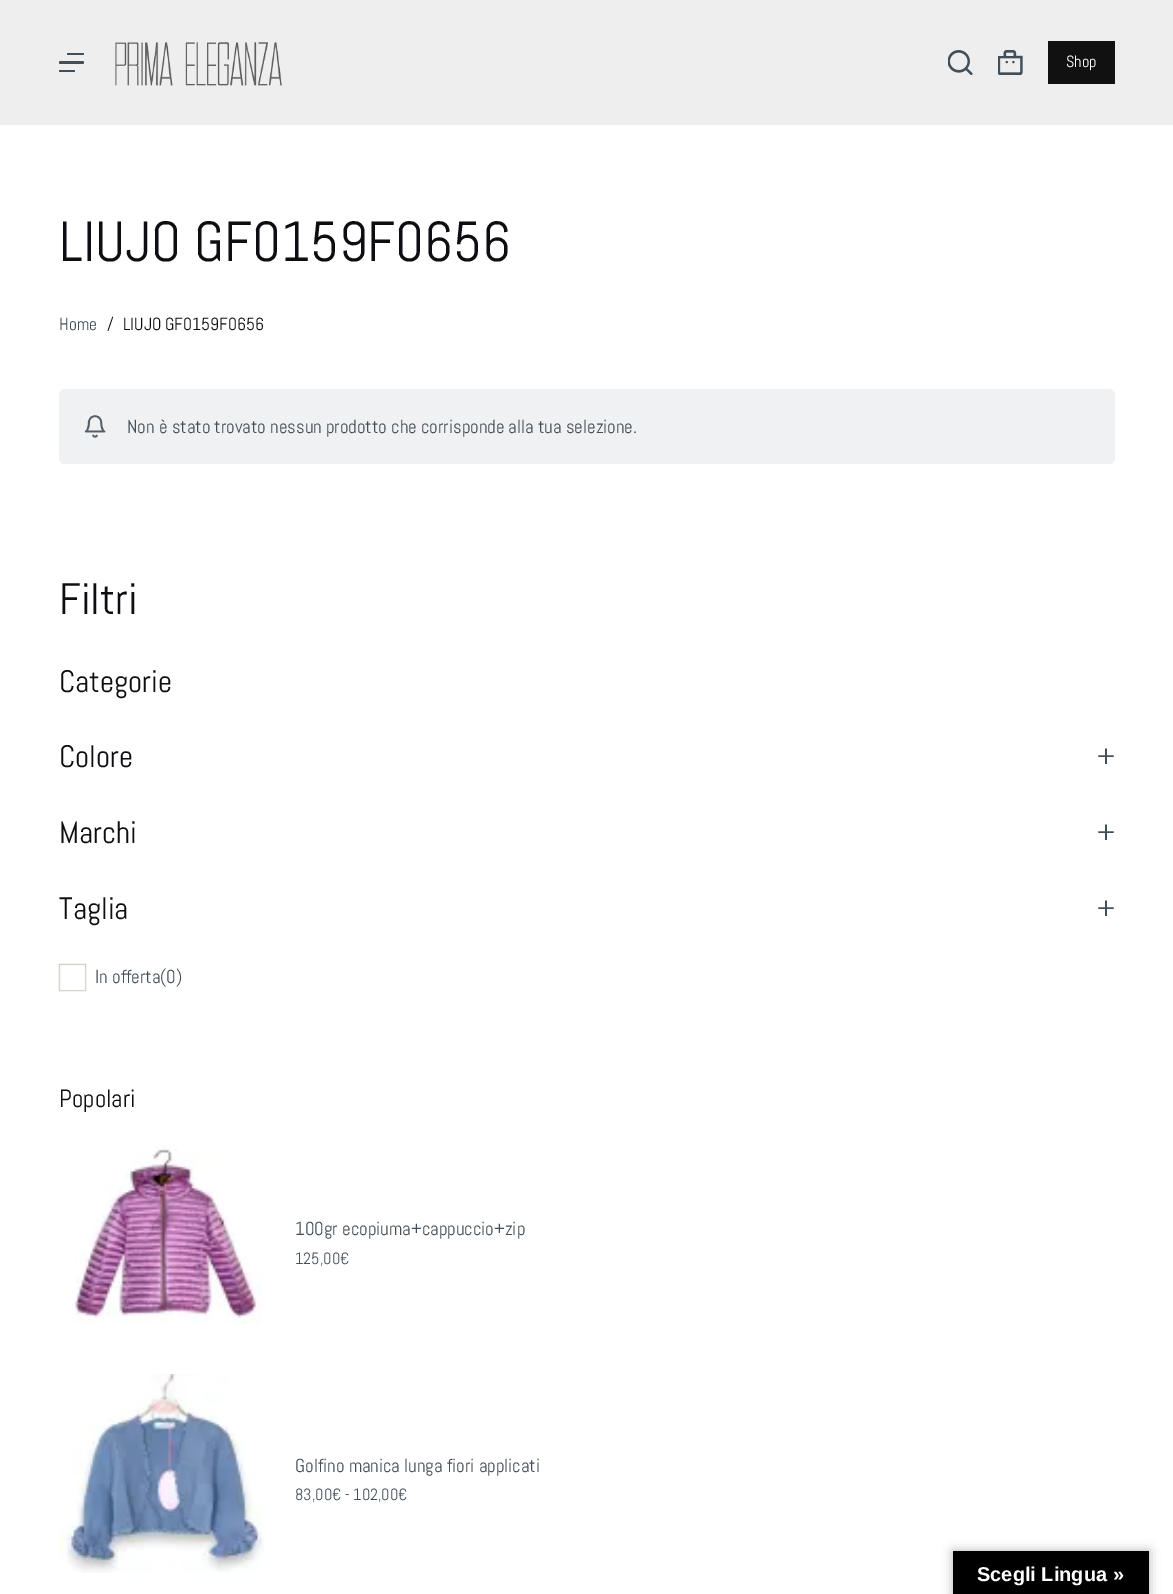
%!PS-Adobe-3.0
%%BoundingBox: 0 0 1173 1594
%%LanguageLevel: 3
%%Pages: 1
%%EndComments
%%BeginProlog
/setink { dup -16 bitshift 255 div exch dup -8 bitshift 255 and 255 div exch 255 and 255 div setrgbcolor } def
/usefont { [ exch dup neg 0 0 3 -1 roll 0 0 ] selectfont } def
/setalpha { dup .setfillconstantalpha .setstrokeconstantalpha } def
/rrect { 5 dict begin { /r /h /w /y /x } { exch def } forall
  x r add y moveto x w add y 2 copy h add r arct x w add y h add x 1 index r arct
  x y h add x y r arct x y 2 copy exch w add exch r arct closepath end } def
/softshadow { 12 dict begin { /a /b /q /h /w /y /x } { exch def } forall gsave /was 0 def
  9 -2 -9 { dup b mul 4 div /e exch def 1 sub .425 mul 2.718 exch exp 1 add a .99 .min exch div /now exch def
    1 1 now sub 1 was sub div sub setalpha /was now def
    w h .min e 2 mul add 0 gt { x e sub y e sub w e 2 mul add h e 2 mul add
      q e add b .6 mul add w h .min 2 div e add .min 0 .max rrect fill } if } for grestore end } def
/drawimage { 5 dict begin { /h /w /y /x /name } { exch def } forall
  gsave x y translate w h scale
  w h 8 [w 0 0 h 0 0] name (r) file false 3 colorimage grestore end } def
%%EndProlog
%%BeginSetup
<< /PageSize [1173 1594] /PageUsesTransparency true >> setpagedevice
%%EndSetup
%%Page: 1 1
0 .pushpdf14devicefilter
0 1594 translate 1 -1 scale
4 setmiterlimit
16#FFFFFF setink
0 0 1173 1594 rectfill
16#EEEEEE setink
0 0 1173 125 rectfill
16#434F58 setink
67 53 17 2 1 rrect fill
59 61 25 3 1.5 rrect fill
59 70 16 2 1 rrect fill
(img1.raw) 115 42 167 44 drawimage
(img2.raw) 948 50 25 25 drawimage
(img3.raw) 998 50 25 25 drawimage
16#111111 setink
1048 41 67 43 rectfill
/Abel-Regular 16.25 usefont
16#FFFFFF setink
1066 67 moveto (Shop) show
/Abel-Regular 56.25 usefont
16#0E0D12 setink
59 261 moveto (LIUJO GF0159F0656) show
/Abel-Regular 17.5 usefont
16#434F58 setink
59 330 moveto (Home) show
16#0E0D12 setink
107 330 moveto (/) show
123 330 moveto (LIUJO GF0159F0656) show
16#F0F1F3 setink
59 389 1056 75 6 rrect fill
(img4.raw) 84 415 22 23 drawimage
/Abel-Regular 18.75 usefont
16#434F58 setink
127 433 moveto (Non è stato trovato nessun prodotto che corrisponde alla tua selezione.) show
/Abel-Regular 44 usefont
16#0E0D12 setink
59 614 moveto (Filtri) show
/Abel-Regular 31 usefont
59 692 moveto (Categorie) show
59 767 moveto (Colore) show
16#434F58 setink
1097 767 moveto (+) show
16#0E0D12 setink
59 843 moveto (Marchi) show
16#434F58 setink
1097 843 moveto (+) show
16#0E0D12 setink
59 919 moveto (Taglia) show
16#434F58 setink
1097 919 moveto (+) show
(img5.raw) 58 963 29 29 drawimage
/Abel-Regular 18.75 usefont
95 983 moveto (In offerta\(0\)) show
/Abel-Regular 25 usefont
16#0E0D12 setink
59 1107 moveto (Popolari) show
(img6.raw) 75 1146 187 178 drawimage
/Abel-Regular 18.75 usefont
16#434F58 setink
295 1235 moveto (100gr ecopiuma+cappuccio+zip) show
/Abel-Regular 16.25 usefont
295 1264 moveto (125,00€) show
(img7.raw) 59 1374 205 199 drawimage
/Abel-Regular 18.75 usefont
295 1472 moveto (Golfino manica lunga fiori applicati) show
/Abel-Regular 16.25 usefont
295 1500 moveto (83,00€ - 102,00€) show
16#000000 setink
953 1551 196 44 0 5.5 0.3 softshadow
953 1551 196 43 rectfill
/LiberationSans-Bold 20 usefont
16#FFFFFF setink
977 1581 moveto (Scegli Lingua ») show
.poppdf14devicefilter showpage
%%EOF
